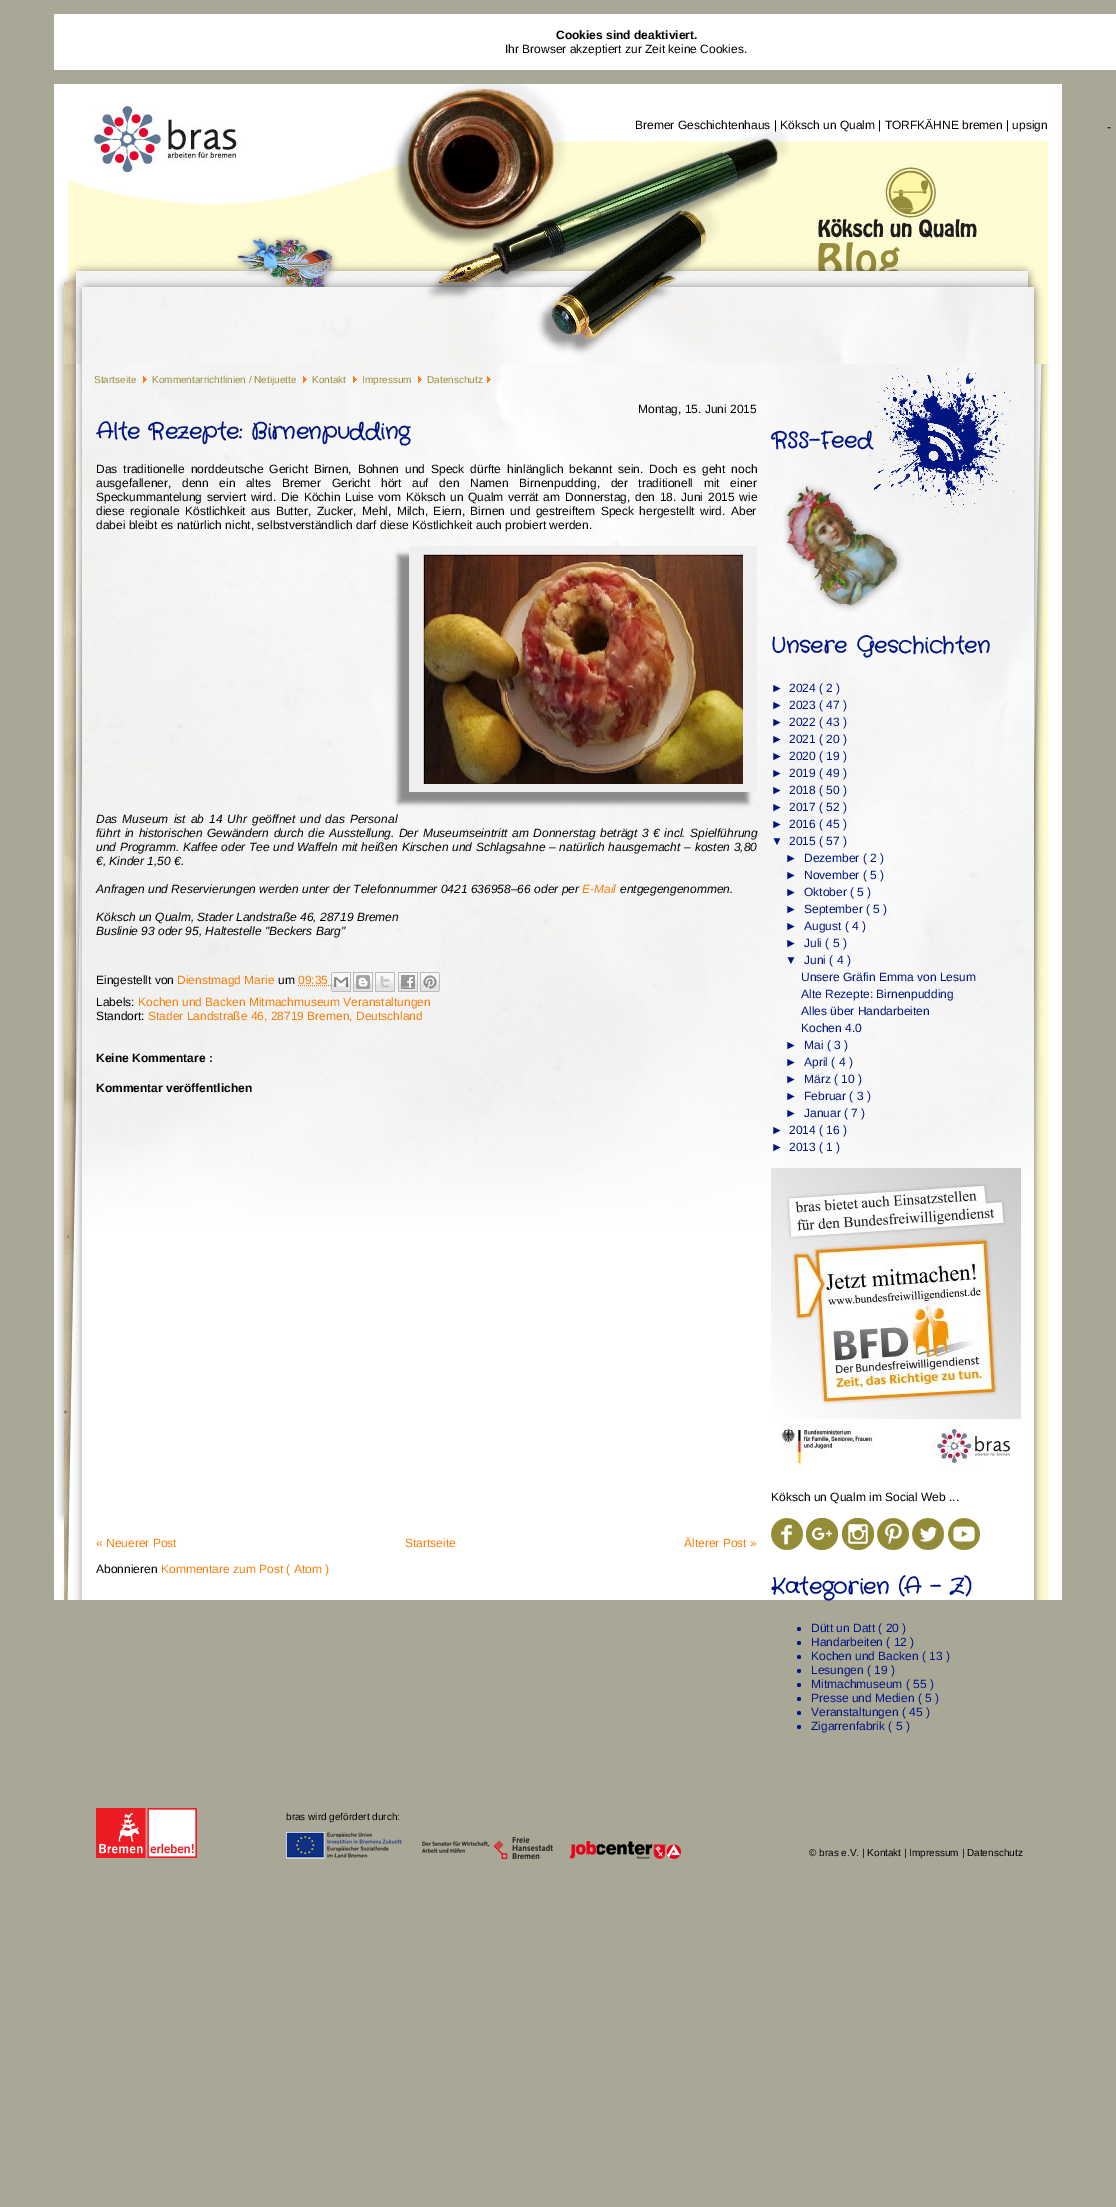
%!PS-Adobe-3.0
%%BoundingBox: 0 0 1116 2207
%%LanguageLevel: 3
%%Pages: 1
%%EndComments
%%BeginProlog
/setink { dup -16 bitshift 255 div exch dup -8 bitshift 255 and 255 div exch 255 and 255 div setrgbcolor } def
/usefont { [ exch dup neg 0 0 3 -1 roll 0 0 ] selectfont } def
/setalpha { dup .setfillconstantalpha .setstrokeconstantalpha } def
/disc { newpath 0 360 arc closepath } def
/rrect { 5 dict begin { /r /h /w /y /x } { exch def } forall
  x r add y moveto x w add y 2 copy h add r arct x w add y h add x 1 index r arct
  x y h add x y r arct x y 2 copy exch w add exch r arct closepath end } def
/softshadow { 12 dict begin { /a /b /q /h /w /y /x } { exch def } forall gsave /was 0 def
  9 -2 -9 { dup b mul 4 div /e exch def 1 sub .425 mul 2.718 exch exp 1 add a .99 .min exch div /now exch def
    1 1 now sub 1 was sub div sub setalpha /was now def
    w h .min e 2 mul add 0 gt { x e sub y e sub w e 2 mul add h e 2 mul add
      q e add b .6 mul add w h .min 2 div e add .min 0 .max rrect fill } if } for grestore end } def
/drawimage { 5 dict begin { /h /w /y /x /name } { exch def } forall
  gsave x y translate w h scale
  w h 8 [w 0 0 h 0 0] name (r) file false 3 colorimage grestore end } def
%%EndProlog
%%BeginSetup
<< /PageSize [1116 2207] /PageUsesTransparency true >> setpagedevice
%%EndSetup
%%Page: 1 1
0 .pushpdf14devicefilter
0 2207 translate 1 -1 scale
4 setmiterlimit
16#A9A796 setink
0 0 1116 2207 rectfill
16#FFFFFF setink
54 14 1062 56 rectfill
/LiberationSans-Bold 12 usefont
16#000000 setink
556 39 moveto (Cookies sind deaktiviert.) show
/LiberationSans-Regular 12 usefont
505 53 moveto (Ihr Browser akzeptiert zur Zeit keine Cookies.) show
(img1.raw) 54 84 1008 1516 drawimage
(img2.raw) 56 84 994 280 drawimage
635 129 moveto (Bremer Geschichtenhaus | Köksch un Qualm | TORFKÄHNE bremen | upsign) show
/LiberationSans-Regular 10 usefont
16#978D38 setink
94 383 moveto (Startseite) show
(img3.raw) 143 376 4 7 drawimage
152 383 moveto (Kommentarrichtlinien / Netijuette) show
(img4.raw) 303 376 4 7 drawimage
312 383 moveto (Kontakt) show
(img5.raw) 353 376 4 7 drawimage
362 383 moveto (Impressum) show
(img6.raw) 418 376 4 7 drawimage
427 383 moveto (Datenschutz) show
(img7.raw) 487 376 4 7 drawimage
/LiberationSans-Regular 12 usefont
16#000000 setink
638 413 moveto (Montag, 15. Juni 2015) show
/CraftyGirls-Bold 22 usefont
16#00157F setink
96 438 moveto (Alte Rezepte: Birnenpudding) show
/LiberationSans-Regular 12 usefont
16#000000 setink
96 473 moveto 2.6 0 32 (Das traditionelle norddeutsche Gericht Birnen, Bohnen und Speck dürfte hinlänglich bekannt sein. Doch es geht noch) widthshow
96 487 moveto 7.25 0 32 (ausgefallener, denn ein altes Bremer Gericht hört auf den Namen Birnenpudding, der traditionell mit einer) widthshow
96 501 moveto 1.4 0 32 (Speckummantelung serviert wird. Die Köchin Luise vom Köksch un Qualm verrät am Donnerstag, den 18. Juni 2015 wie) widthshow
96 515 moveto 2.1 0 32 (diese regionale Köstlichkeit aus Butter, Zucker, Mehl, Milch, Eiern, Birnen und gestreiftem Speck hergestellt wird. Aber) widthshow
96 529 moveto (dabei bleibt es natürlich nicht, selbstverständlich darf diese Köstlichkeit auch probiert werden.) show
16#888888 setink
398 555 350 248 0 2.5 1 softshadow
[
    [409 546 14 246 16#EFEFEF]
    [423 546 320 8 16#EFEFEF]
    [743 546 14 238 16#EFEFEF]
] { aload pop setink rectfill } forall
(img8.raw) 423 554 320 230 drawimage
423 784 334 8 rectfill
/LiberationSans-Italic 12 usefont
16#000000 setink
96 823 moveto 1.75 0 32 (Das Museum ist ab 14 Uhr geöffnet und das Personal) widthshow
96 837 moveto 1.25 0 32 (führt in historischen Gewändern durch die Ausstellung. Der Museumseintritt am Donnerstag beträgt 3 € incl. Spielführung) widthshow
96 851 moveto 0.4 0 32 (und Programm. Kaffee oder Tee und Waffeln mit heißen Kirschen und Schlagsahne – natürlich hausgemacht – kosten 3,80) widthshow
96 865 moveto (€, Kinder 1,50 €.) show
96 893 moveto (Anfragen und Reservierungen werden unter der Telefonnummer 0421 636958–66 oder per) show
16#F67E08 setink
582 893 moveto (E-Mail) show
16#000000 setink
[
    [(entgegengenommen.) 620 893]
    [(Köksch un Qualm, Stader Landstraße 46, 28719 Bremen) 96 921]
    [(Buslinie 93 oder 95, Haltestelle "Beckers Barg") 96 935]
] { aload pop moveto show } forall
/LiberationSans-Regular 12 usefont
96 984 moveto (Eingestellt von) show
16#F67E08 setink
177 984 moveto (Dienstmagd Marie) show
16#000000 setink
278 984 moveto (um) show
16#F67E08 setink
298 984 moveto (09:35) show
[1 1] 0 setdash
298 985.5 moveto 331.5 985.5 lineto stroke
(img9.raw) 331 972 20 20 drawimage
(img10.raw) 353 972 20 20 drawimage
(img11.raw) 375 972 20 20 drawimage
(img12.raw) 398 972 20 20 drawimage
(img13.raw) 420 972 20 20 drawimage
16#000000 setink
96 1006 moveto (Labels:) show
16#F67E08 setink
138 1006 moveto (Kochen und Backen Mitmachmuseum Veranstaltungen) show
16#000000 setink
96 1020 moveto (Standort:) show
16#F67E08 setink
148 1020 moveto (Stader Landstraße 46, 28719 Bremen, Deutschland) show
/LiberationSans-Bold 12 usefont
16#000000 setink
96 1062 moveto (Keine Kommentare :) show
96 1092 moveto (Kommentar veröffentlichen) show
/LiberationSans-Regular 12 usefont
16#F67E08 setink
[
    [(« Neuerer Post) 96 1547]
    [(Startseite) 405 1547]
    [(Älterer Post ») 684 1547]
] { aload pop moveto show } forall
16#000000 setink
96 1573 moveto (Abonnieren) show
16#F67E08 setink
161 1573 moveto (Kommentare zum Post \( Atom \)) show
(img14.raw) 783 368 232 244 drawimage
/CraftyGirls-Bold 22 usefont
16#00157F setink
771 447 moveto (RSS-Feed) show
771 652 moveto (Unsere Geschichten) show
/LiberationSans-Regular 12 usefont
[
    [(►) 771 692]
    [(2024 \( 2 \)) 789 692]
    [(►) 771 709]
    [(2023 \( 47 \)) 789 709]
    [(►) 771 726]
    [(2022 \( 43 \)) 789 726]
    [(►) 771 743]
    [(2021 \( 20 \)) 789 743]
    [(►) 771 760]
    [(2020 \( 19 \)) 789 760]
    [(►) 771 777]
    [(2019 \( 49 \)) 789 777]
    [(►) 771 794]
    [(2018 \( 50 \)) 789 794]
    [(►) 771 811]
    [(2017 \( 52 \)) 789 811]
    [(►) 771 828]
    [(2016 \( 45 \)) 789 828]
    [(▼) 771 845]
    [(2015 \( 57 \)) 789 845]
    [(►) 785 862]
    [(Dezember \( 2 \)) 804 862]
    [(►) 785 879]
    [(November \( 5 \)) 804 879]
    [(►) 785 896]
    [(Oktober \( 5 \)) 804 896]
    [(►) 785 913]
    [(September \( 5 \)) 804 913]
    [(►) 785 930]
    [(August \( 4 \)) 804 930]
    [(►) 785 947]
    [(Juli \( 5 \)) 804 947]
    [(▼) 785 964]
    [(Juni \( 4 \)) 804 964]
    [(Unsere Gräfin Emma von Lesum) 801 981]
    [(Alte Rezepte: Birnenpudding) 801 998]
    [(Alles über Handarbeiten) 801 1015]
    [(Kochen 4.0) 801 1032]
    [(►) 785 1049]
    [(Mai \( 3 \)) 804 1049]
    [(►) 785 1066]
    [(April \( 4 \)) 804 1066]
    [(►) 785 1083]
    [(März \( 10 \)) 804 1083]
    [(►) 785 1100]
    [(Februar \( 3 \)) 804 1100]
    [(►) 785 1117]
    [(Januar \( 7 \)) 804 1117]
    [(►) 771 1134]
    [(2014 \( 16 \)) 789 1134]
    [(►) 771 1151]
    [(2013 \( 1 \)) 789 1151]
] { aload pop moveto show } forall
(img15.raw) 771 1168 250 304 drawimage
16#000000 setink
771 1501 moveto (Köksch un Qualm im Social Web ...) show
(img16.raw) 771 1518 32 32 drawimage
(img17.raw) 806 1518 32 32 drawimage
(img18.raw) 842 1518 32 32 drawimage
(img19.raw) 877 1518 32 32 drawimage
(img20.raw) 912 1518 32 32 drawimage
(img21.raw) 948 1518 32 32 drawimage
/CraftyGirls-Bold 22 usefont
16#00157F setink
771 1593 moveto (Kategorien \(A - Z\)) show
799 1629 2 disc fill
/LiberationSans-Regular 12 usefont
811 1632 moveto (Dütt un Datt \( 20 \)) show
799 1643 2 disc fill
811 1646 moveto (Handarbeiten \( 12 \)) show
799 1657 2 disc fill
811 1660 moveto (Kochen und Backen \( 13 \)) show
799 1671 2 disc fill
811 1674 moveto (Lesungen \( 19 \)) show
799 1685 2 disc fill
811 1688 moveto (Mitmachmuseum \( 55 \)) show
799 1699 2 disc fill
811 1702 moveto (Presse und Medien \( 5 \)) show
799 1713 2 disc fill
811 1716 moveto (Veranstaltungen \( 45 \)) show
799 1727 2 disc fill
811 1730 moveto (Zigarrenfabrik \( 5 \)) show
(img22.raw) 96 1808 101 50 drawimage
/LiberationSans-Regular 10 usefont
16#000000 setink
286 1820 moveto (bras wird gefördert durch:) show
(img23.raw) 286 1832 116 27 drawimage
(img24.raw) 422 1837 131 22 drawimage
(img25.raw) 570 1841 111 18 drawimage
809 1856 moveto (© bras e.V. | Kontakt | Impressum | Datenschutz) show
/LiberationSans-Regular 12 usefont
1107 131 moveto (-) show
.poppdf14devicefilter showpage
%%EOF
